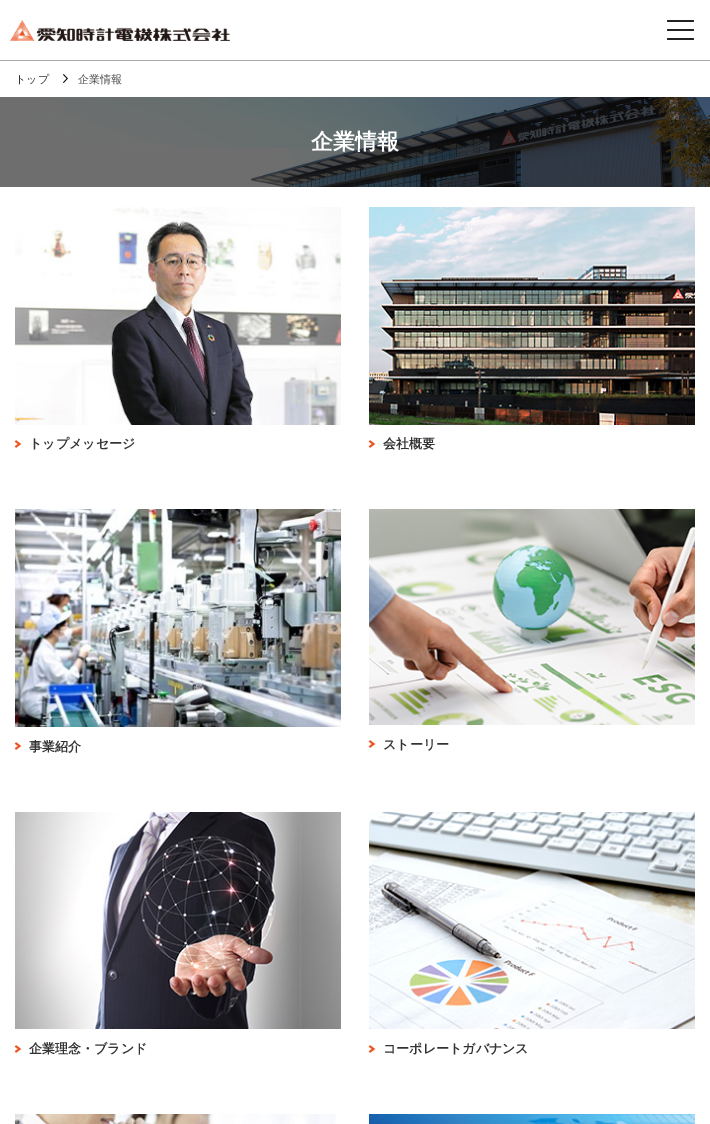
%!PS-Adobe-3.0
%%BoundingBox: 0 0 710 1124
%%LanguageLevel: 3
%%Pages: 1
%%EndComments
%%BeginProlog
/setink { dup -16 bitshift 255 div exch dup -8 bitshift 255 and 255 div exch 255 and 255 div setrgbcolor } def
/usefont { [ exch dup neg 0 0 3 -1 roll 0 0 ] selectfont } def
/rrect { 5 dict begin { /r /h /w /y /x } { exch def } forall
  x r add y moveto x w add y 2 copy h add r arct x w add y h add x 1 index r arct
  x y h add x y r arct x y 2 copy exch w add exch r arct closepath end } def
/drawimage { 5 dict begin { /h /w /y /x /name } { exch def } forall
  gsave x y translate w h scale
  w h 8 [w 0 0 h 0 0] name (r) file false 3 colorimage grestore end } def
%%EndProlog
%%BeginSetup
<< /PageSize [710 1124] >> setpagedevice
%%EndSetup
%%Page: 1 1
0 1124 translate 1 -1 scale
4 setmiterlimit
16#FFFFFF setink
0 0 710 1124 rectfill
(img1.raw) 10 20 220 21 drawimage
16#222222 setink
667 20 27 2 1 rrect fill
667 29 27 2 1 rrect fill
667 38 27 2 1 rrect fill
16#AAAAAA setink
0 60 710 1 rectfill
/WenQuanYiZenHei-Medium 11 usefont
16#333333 setink
15 83 moveto (トップ) show
(img2.raw) 63 74 5 9 drawimage
16#4D4D4D setink
78 83 moveto (企業情報) show
(img3.raw) 0 97 710 90 drawimage
/WenQuanYiZenHei-Bold 22 usefont
16#FFFFFF setink
311 149 moveto (企業情報) show
(img4.raw) 15 207 326 218 drawimage
16#EA5420 setink
1.9 setlinewidth
15.5 441 moveto 19.5 444 lineto 15.5 447 lineto stroke
/WenQuanYiZenHei-Bold 13 usefont
16#333333 setink
29 448 moveto (トップメッセージ) show
(img5.raw) 369 207 326 218 drawimage
16#EA5420 setink
369.5 441 moveto 373.5 444 lineto 369.5 447 lineto stroke
16#333333 setink
383 448 moveto (会社概要) show
(img6.raw) 15 509 326 218 drawimage
16#EA5420 setink
15.5 743 moveto 19.5 746 lineto 15.5 749 lineto stroke
16#333333 setink
29 751 moveto (事業紹介) show
(img7.raw) 369 509 326 216 drawimage
16#EA5420 setink
369.5 741 moveto 373.5 744 lineto 369.5 747 lineto stroke
16#333333 setink
383 749 moveto (ストーリー) show
(img8.raw) 15 812 326 217 drawimage
16#EA5420 setink
15.5 1046 moveto 19.5 1049 lineto 15.5 1052 lineto stroke
16#333333 setink
29 1053 moveto (企業理念・ブランド) show
(img9.raw) 369 812 326 217 drawimage
16#EA5420 setink
369.5 1046 moveto 373.5 1049 lineto 369.5 1052 lineto stroke
16#333333 setink
383 1053 moveto (コーポレートガバナンス) show
(img10.raw) 15 1114 321 10 drawimage
(img11.raw) 369 1114 326 10 drawimage
showpage
%%EOF
